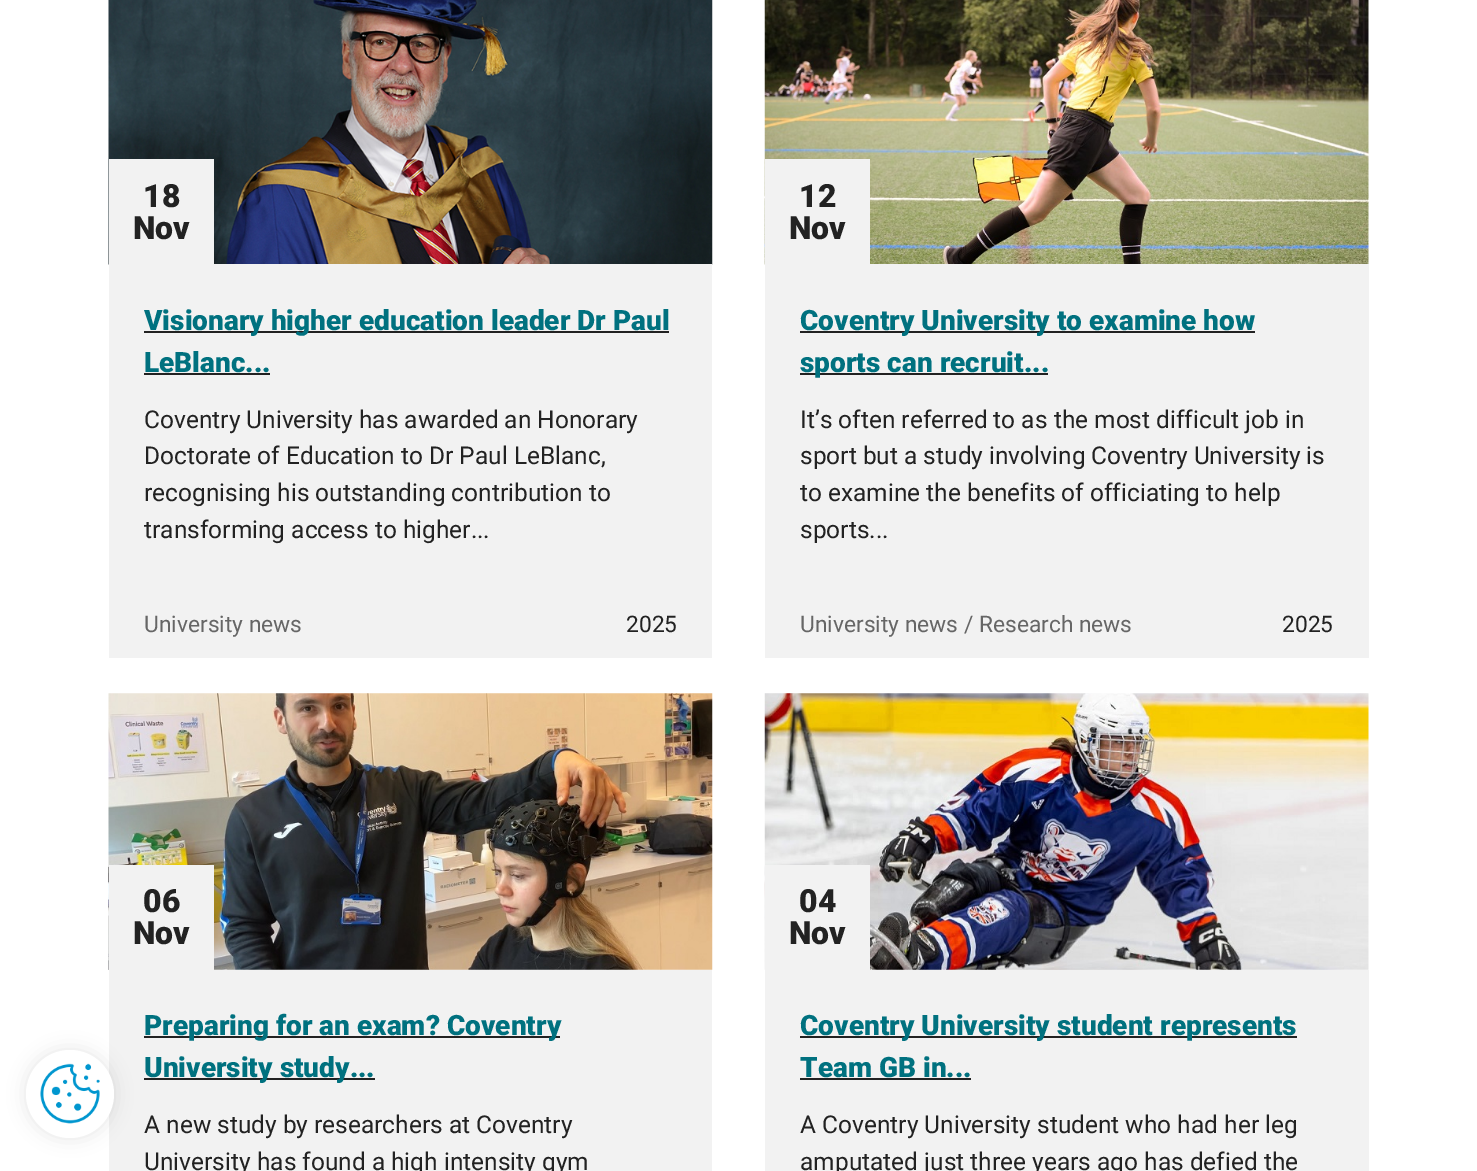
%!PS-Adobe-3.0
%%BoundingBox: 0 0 1477 1171
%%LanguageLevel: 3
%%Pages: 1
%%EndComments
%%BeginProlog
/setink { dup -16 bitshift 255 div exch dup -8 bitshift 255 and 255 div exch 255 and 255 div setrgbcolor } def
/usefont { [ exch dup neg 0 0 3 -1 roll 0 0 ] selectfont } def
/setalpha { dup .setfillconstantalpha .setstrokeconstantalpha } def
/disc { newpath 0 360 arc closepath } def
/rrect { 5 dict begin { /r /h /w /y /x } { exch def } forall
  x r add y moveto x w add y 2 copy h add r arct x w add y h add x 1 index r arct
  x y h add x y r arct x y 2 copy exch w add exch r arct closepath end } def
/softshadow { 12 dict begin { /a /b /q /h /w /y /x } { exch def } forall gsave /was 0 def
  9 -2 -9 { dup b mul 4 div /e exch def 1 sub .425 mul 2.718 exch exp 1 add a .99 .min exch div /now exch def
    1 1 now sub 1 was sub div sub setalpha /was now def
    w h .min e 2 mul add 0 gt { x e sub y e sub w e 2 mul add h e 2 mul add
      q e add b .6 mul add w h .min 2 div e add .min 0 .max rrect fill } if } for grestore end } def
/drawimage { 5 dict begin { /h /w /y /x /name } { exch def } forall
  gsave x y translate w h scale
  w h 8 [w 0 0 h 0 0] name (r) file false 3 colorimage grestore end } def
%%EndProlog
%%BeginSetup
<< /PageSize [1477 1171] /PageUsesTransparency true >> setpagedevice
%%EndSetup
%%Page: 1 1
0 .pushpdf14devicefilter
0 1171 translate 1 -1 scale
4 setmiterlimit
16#FFFFFF setink
0 0 1477 1171 rectfill
16#F2F2F2 setink
109 970 603 201 rectfill
16#000000 setink
26 1050 88 88 44 9 0.1 softshadow
16#FFFFFF setink
70 1094 44 disc fill
(img1.raw) 40 1063 60 61 drawimage
(img2.raw) 108 0 605 265 drawimage
16#F2F2F2 setink
109 159 105 105 rectfill
/Roboto-Black 32 usefont
16#222222 setink
143 207 moveto (18) show
133 239 moveto (Nov) show
16#F2F2F2 setink
109 264 603 394 rectfill
16#222222 setink
144 331 525 2 rectfill
/Roboto-Black 28 usefont
16#00717F setink
144 330 moveto (Visionary higher education leader Dr Paul) show
144 372 moveto (LeBlanc...) show
16#222222 setink
144 373 126 2 rectfill
/Roboto-Regular 24.5 usefont
[
    [(Coventry University has awarded an Honorary) 144 428]
    [(Doctorate of Education to Dr Paul LeBlanc,) 144 464]
    [(recognising his outstanding contribution to) 144 501]
    [(transforming access to higher...) 144 538]
] { aload pop moveto show } forall
/Roboto-Regular 22.75 usefont
16#666666 setink
144 632 moveto (University news) show
16#222222 setink
626 632 moveto (2025) show
(img3.raw) 764 0 605 265 drawimage
16#F2F2F2 setink
765 159 105 105 rectfill
/Roboto-Black 32 usefont
16#222222 setink
799 207 moveto (12) show
789 239 moveto (Nov) show
16#F2F2F2 setink
765 264 604 394 rectfill
16#222222 setink
800 331 455 2 rectfill
/Roboto-Black 28 usefont
16#00717F setink
800 330 moveto (Coventry University to examine how) show
16#222222 setink
800 373 248 2 rectfill
16#00717F setink
800 372 moveto (sports can recruit...) show
/Roboto-Regular 24.5 usefont
16#222222 setink
[
    [(It’s often referred to as the most difficult job in) 800 428]
    [(sport but a study involving Coventry University is) 800 464]
    [(to examine the benefits of officiating to help) 800 501]
    [(sports...) 800 538]
] { aload pop moveto show } forall
/Roboto-Regular 22.75 usefont
16#666666 setink
800 632 moveto (University news / Research news) show
16#222222 setink
1282 632 moveto (2025) show
(img4.raw) 108 693 605 277 drawimage
16#F2F2F2 setink
109 865 105 105 rectfill
/Roboto-Black 32 usefont
16#222222 setink
143 912 moveto (06) show
133 944 moveto (Nov) show
144 1036 416 2 rectfill
/Roboto-Black 28 usefont
16#00717F setink
144 1035 moveto (Preparing for an exam? Coventry) show
16#222222 setink
144 1078 231 2 rectfill
16#00717F setink
144 1077 moveto (University study...) show
/Roboto-Regular 24.5 usefont
16#222222 setink
144 1133 moveto (A new study by researchers at Coventry) show
144 1170 moveto (University has found a high intensity gym) show
(img5.raw) 764 693 605 277 drawimage
16#F2F2F2 setink
765 865 105 105 rectfill
/Roboto-Black 32 usefont
16#222222 setink
799 912 moveto (04) show
789 944 moveto (Nov) show
16#F2F2F2 setink
765 970 604 201 rectfill
16#222222 setink
800 1036 497 2 rectfill
/Roboto-Black 28 usefont
16#00717F setink
800 1035 moveto (Coventry University student represents) show
800 1077 moveto (Team GB in...) show
16#222222 setink
800 1078 171 2 rectfill
/Roboto-Regular 24.5 usefont
800 1133 moveto (A Coventry University student who had her leg) show
800 1170 moveto (amputated just three years ago has defied the) show
.poppdf14devicefilter showpage
%%EOF
